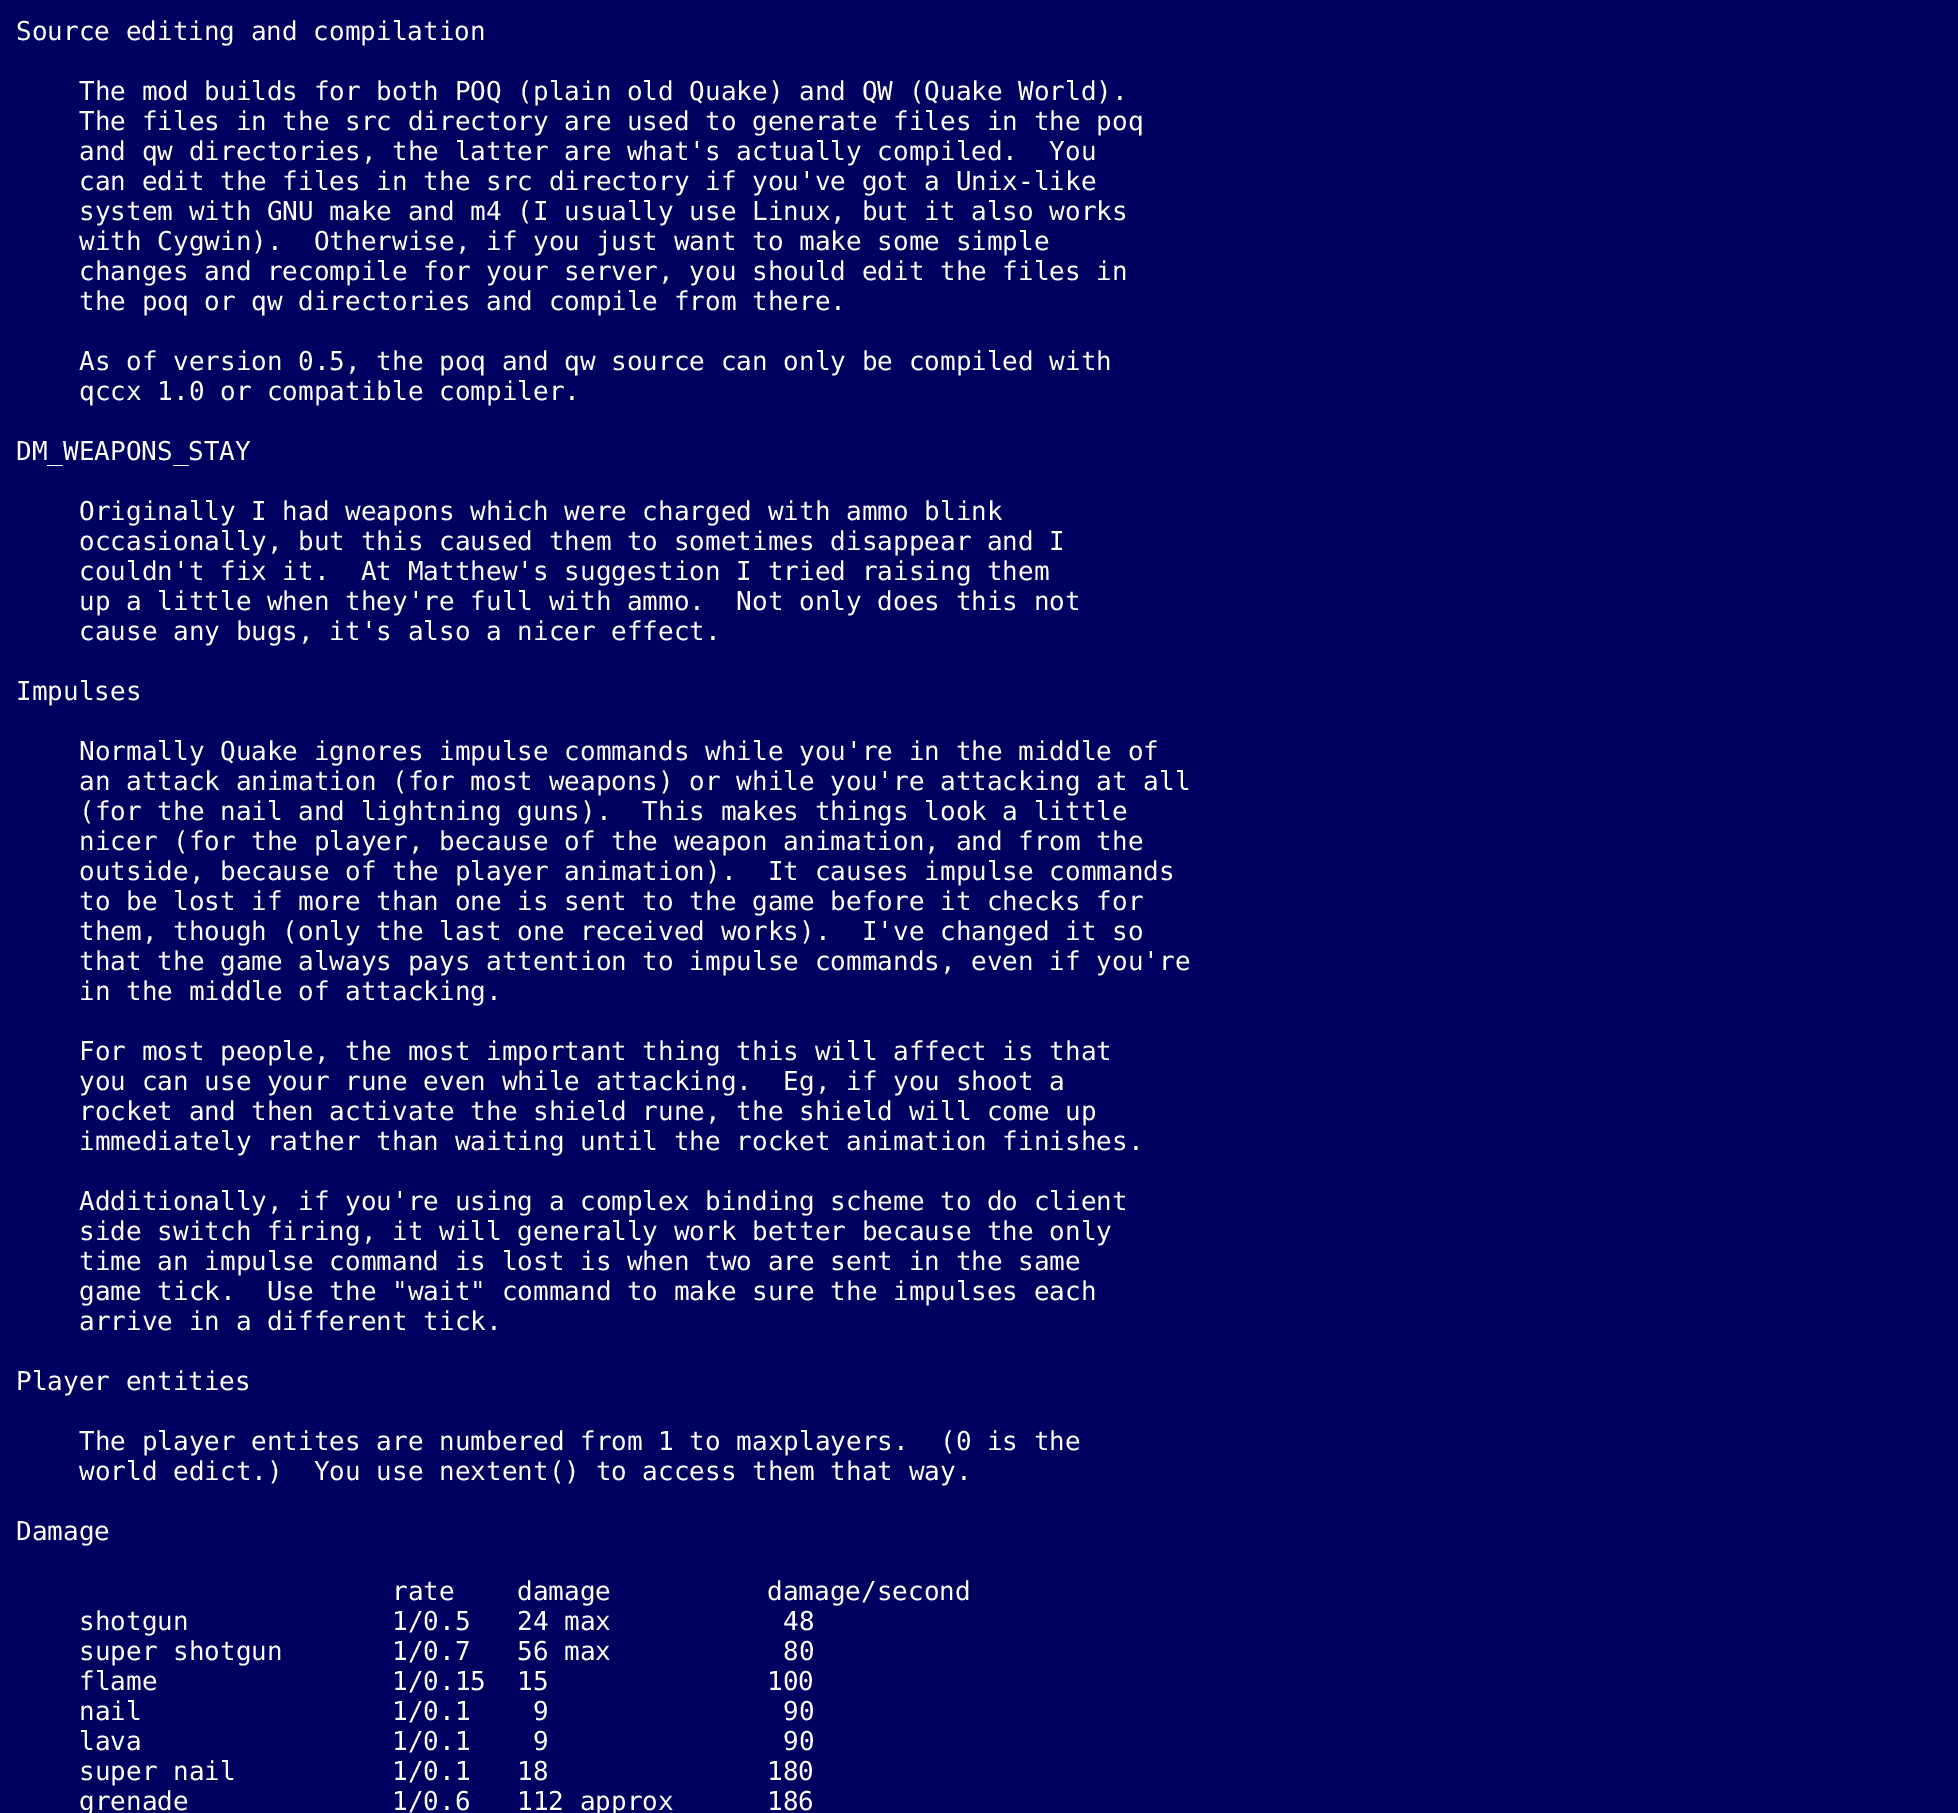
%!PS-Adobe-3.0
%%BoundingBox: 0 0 1958 1813
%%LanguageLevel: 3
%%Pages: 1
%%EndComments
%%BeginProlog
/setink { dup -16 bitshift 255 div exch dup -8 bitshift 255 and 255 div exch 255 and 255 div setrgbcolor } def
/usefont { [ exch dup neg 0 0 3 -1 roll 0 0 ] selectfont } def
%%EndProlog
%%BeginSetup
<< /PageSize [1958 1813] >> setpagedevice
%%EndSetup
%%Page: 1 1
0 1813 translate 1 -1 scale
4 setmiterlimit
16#000060 setink
0 0 1958 1813 rectfill
/DejaVuSansMono-Regular 26 usefont
16#FFFFFF setink
[
    [(Source editing and compilation) 16 40]
    [(The mod builds for both POQ \(plain old Quake\) and QW \(Quake World\).) 79 100]
    [(The files in the src directory are used to generate files in the poq) 79 130]
    [(and qw directories, the latter are what's actually compiled.  You) 79 160]
    [(can edit the files in the src directory if you've got a Unix-like) 79 190]
    [(system with GNU make and m4 \(I usually use Linux, but it also works) 79 220]
    [(with Cygwin\).  Otherwise, if you just want to make some simple) 79 250]
    [(changes and recompile for your server, you should edit the files in) 79 280]
    [(the poq or qw directories and compile from there.) 79 310]
    [(As of version 0.5, the poq and qw source can only be compiled with) 79 370]
    [(qccx 1.0 or compatible compiler.) 79 400]
    [(DM_WEAPONS_STAY) 16 460]
    [(Originally I had weapons which were charged with ammo blink) 79 520]
    [(occasionally, but this caused them to sometimes disappear and I) 79 550]
    [(couldn't fix it.  At Matthew's suggestion I tried raising them) 79 580]
    [(up a little when they're full with ammo.  Not only does this not) 79 610]
    [(cause any bugs, it's also a nicer effect.) 79 640]
    [(Impulses) 16 700]
    [(Normally Quake ignores impulse commands while you're in the middle of) 79 760]
    [(an attack animation \(for most weapons\) or while you're attacking at all) 79 790]
    [(\(for the nail and lightning guns\).  This makes things look a little) 79 820]
    [(nicer \(for the player, because of the weapon animation, and from the) 79 850]
    [(outside, because of the player animation\).  It causes impulse commands) 79 880]
    [(to be lost if more than one is sent to the game before it checks for) 79 910]
    [(them, though \(only the last one received works\).  I've changed it so) 79 940]
    [(that the game always pays attention to impulse commands, even if you're) 79 970]
    [(in the middle of attacking.) 79 1000]
    [(For most people, the most important thing this will affect is that) 79 1060]
    [(you can use your rune even while attacking.  Eg, if you shoot a) 79 1090]
    [(rocket and then activate the shield rune, the shield will come up) 79 1120]
    [(immediately rather than waiting until the rocket animation finishes.) 79 1150]
    [(Additionally, if you're using a complex binding scheme to do client) 79 1210]
    [(side switch firing, it will generally work better because the only) 79 1240]
    [(time an impulse command is lost is when two are sent in the same) 79 1270]
    [(game tick.  Use the "wait" command to make sure the impulses each) 79 1300]
    [(arrive in a different tick.) 79 1330]
    [(Player entities) 16 1390]
    [(The player entites are numbered from 1 to maxplayers.  \(0 is the) 79 1450]
    [(world edict.\)  You use nextent\(\) to access them that way.) 79 1480]
    [(Damage) 16 1540]
    [(rate) 392 1600]
    [(damage) 517 1600]
    [(damage/second) 767 1600]
    [(shotgun) 79 1630]
    [(1/0.5) 392 1630]
    [(24 max) 517 1630]
    [(48) 783 1630]
    [(super shotgun) 79 1660]
    [(1/0.7) 392 1660]
    [(56 max) 517 1660]
    [(80) 783 1660]
    [(flame) 79 1690]
    [(1/0.15) 392 1690]
    [(15) 517 1690]
    [(100) 767 1690]
    [(nail) 79 1720]
    [(1/0.1) 392 1720]
    [(9) 533 1720]
    [(90) 783 1720]
    [(lava) 79 1750]
    [(1/0.1) 392 1750]
    [(9) 533 1750]
    [(90) 783 1750]
    [(super nail) 79 1780]
    [(1/0.1) 392 1780]
    [(18) 517 1780]
    [(180) 767 1780]
    [(grenade) 79 1810]
    [(1/0.6) 392 1810]
    [(112 approx) 517 1810]
    [(186) 767 1810]
] { aload pop moveto show } forall
showpage
%%EOF
